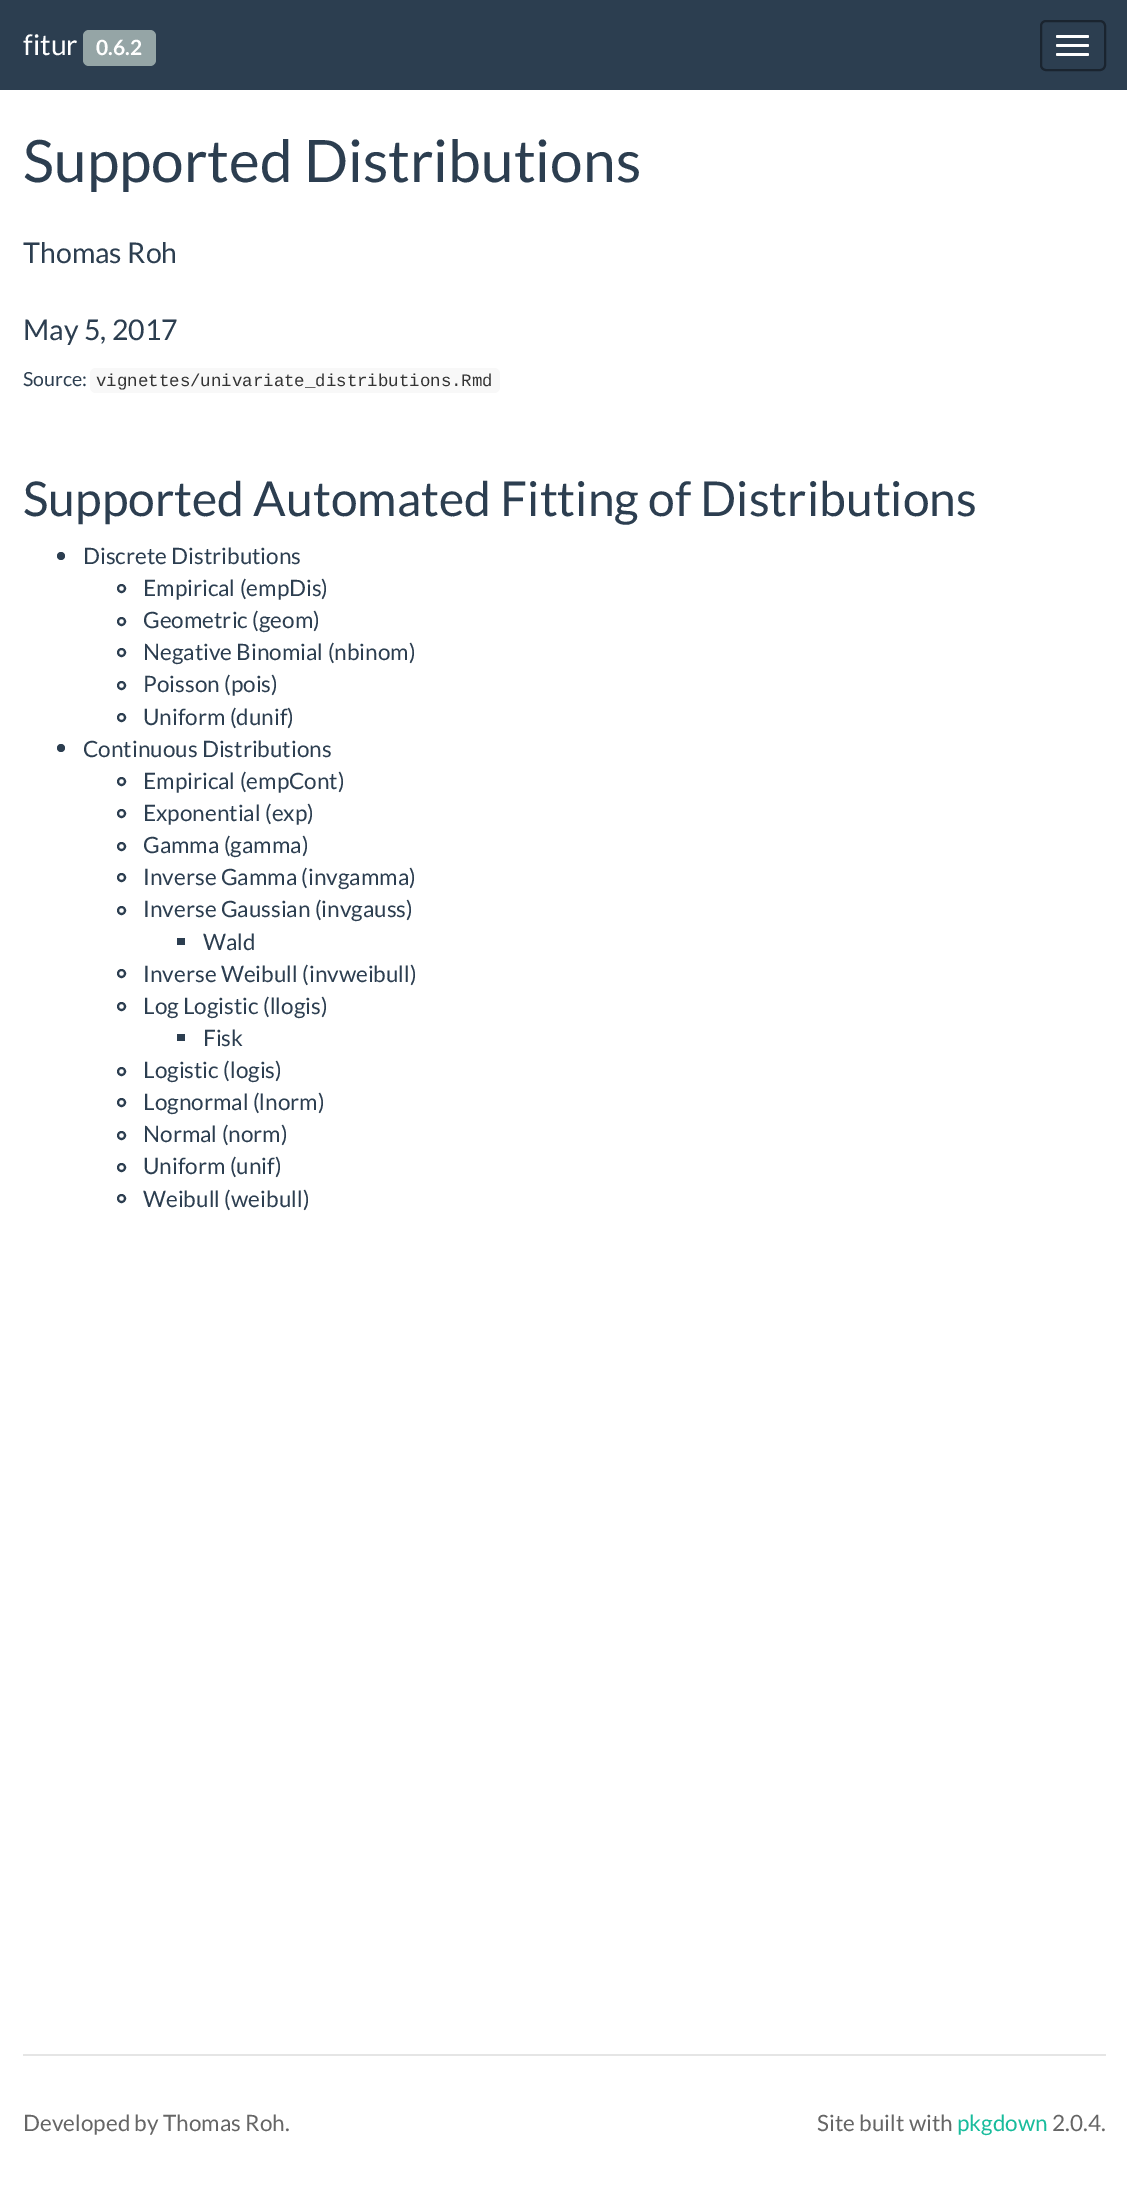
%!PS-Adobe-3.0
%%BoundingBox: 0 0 1127 2193
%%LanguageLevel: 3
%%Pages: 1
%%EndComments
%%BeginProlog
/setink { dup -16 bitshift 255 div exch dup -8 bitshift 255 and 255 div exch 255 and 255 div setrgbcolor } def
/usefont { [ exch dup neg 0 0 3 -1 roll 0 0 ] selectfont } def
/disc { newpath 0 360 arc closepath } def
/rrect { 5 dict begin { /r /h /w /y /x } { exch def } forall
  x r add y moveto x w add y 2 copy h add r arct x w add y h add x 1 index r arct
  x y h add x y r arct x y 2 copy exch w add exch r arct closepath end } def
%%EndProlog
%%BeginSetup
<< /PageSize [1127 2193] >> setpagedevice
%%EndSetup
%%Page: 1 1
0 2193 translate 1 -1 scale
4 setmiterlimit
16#FFFFFF setink
0 0 1127 2193 rectfill
16#2C3E50 setink
0 0 1127 90 rectfill
/Lato-Regular 28.5 usefont
16#FFFFFF setink
23 55 moveto (fitur) show
16#95A5A6 setink
83 30 73 36 6 rrect fill
/Lato-Bold 21 usefont
16#FFFFFF setink
96 55 moveto (0.6.2) show
16#1A242F setink
2 setlinewidth
1041 21 64 49 5 rrect stroke
16#FFFFFF setink
1056 35 33 3 1.5 rrect fill
1056 44 33 3 1.5 rrect fill
1056 53 33 3 1.5 rrect fill
/Lato-Regular 58.5 usefont
16#2C3E50 setink
23 182 moveto (Supported Distributions) show
/Lato-Regular 28.5 usefont
23 263 moveto (Thomas Roh) show
23 340 moveto (May 5, 2017) show
/Lato-Regular 19.5 usefont
23 386 moveto (Source:) show
16#F8F8F8 setink
90 368 410 25 6 rrect fill
/LiberationMono-Regular 17.4 usefont
16#333333 setink
96 386 moveto (vignettes/univariate_distributions.Rmd) show
/Lato-Regular 48 usefont
16#2C3E50 setink
23 516 moveto (Supported Automated Fitting of Distributions) show
61 556 4 disc fill
/Lato-Regular 22.5 usefont
83 564 moveto (Discrete Distributions) show
121.5 588.5 3.5 disc stroke
143 596 moveto (Empirical \(empDis\)) show
121.5 621.5 3.5 disc stroke
143 628 moveto (Geometric \(geom\)) show
121.5 652.5 3.5 disc stroke
143 660 moveto (Negative Binomial \(nbinom\)) show
121.5 685.5 3.5 disc stroke
143 692 moveto (Poisson \(pois\)) show
121.5 717.5 3.5 disc stroke
143 725 moveto (Uniform \(dunif\)) show
61 748 4 disc fill
83 757 moveto (Continuous Distributions) show
121.5 781.5 3.5 disc stroke
143 789 moveto (Empirical \(empCont\)) show
121.5 813.5 3.5 disc stroke
143 821 moveto (Exponential \(exp\)) show
121.5 846.5 3.5 disc stroke
143 853 moveto (Gamma \(gamma\)) show
121.5 877.5 3.5 disc stroke
143 885 moveto (Inverse Gamma \(invgamma\)) show
121.5 910.5 3.5 disc stroke
143 917 moveto (Inverse Gaussian \(invgauss\)) show
177 938 8 7 rectfill
203 950 moveto (Wald) show
121.5 973.5 3.5 disc stroke
143 982 moveto (Inverse Weibull \(invweibull\)) show
121.5 1006.5 3.5 disc stroke
143 1014 moveto (Log Logistic \(llogis\)) show
177 1034 8 7 rectfill
203 1046 moveto (Fisk) show
121.5 1071.5 3.5 disc stroke
143 1078 moveto (Logistic \(logis\)) show
121.5 1102.5 3.5 disc stroke
143 1110 moveto (Lognormal \(lnorm\)) show
121.5 1135.5 3.5 disc stroke
143 1142 moveto (Normal \(norm\)) show
121.5 1167.5 3.5 disc stroke
143 1174 moveto (Uniform \(unif\)) show
121.5 1198.5 3.5 disc stroke
143 1207 moveto (Weibull \(weibull\)) show
16#E5E5E5 setink
23 2054 1083 2 rectfill
16#666666 setink
23 2131 moveto (Developed by Thomas Roh.) show
817 2131 moveto (Site built with) show
16#18BC9C setink
957 2131 moveto (pkgdown) show
16#666666 setink
1052 2131 moveto (2.0.4.) show
showpage
%%EOF
